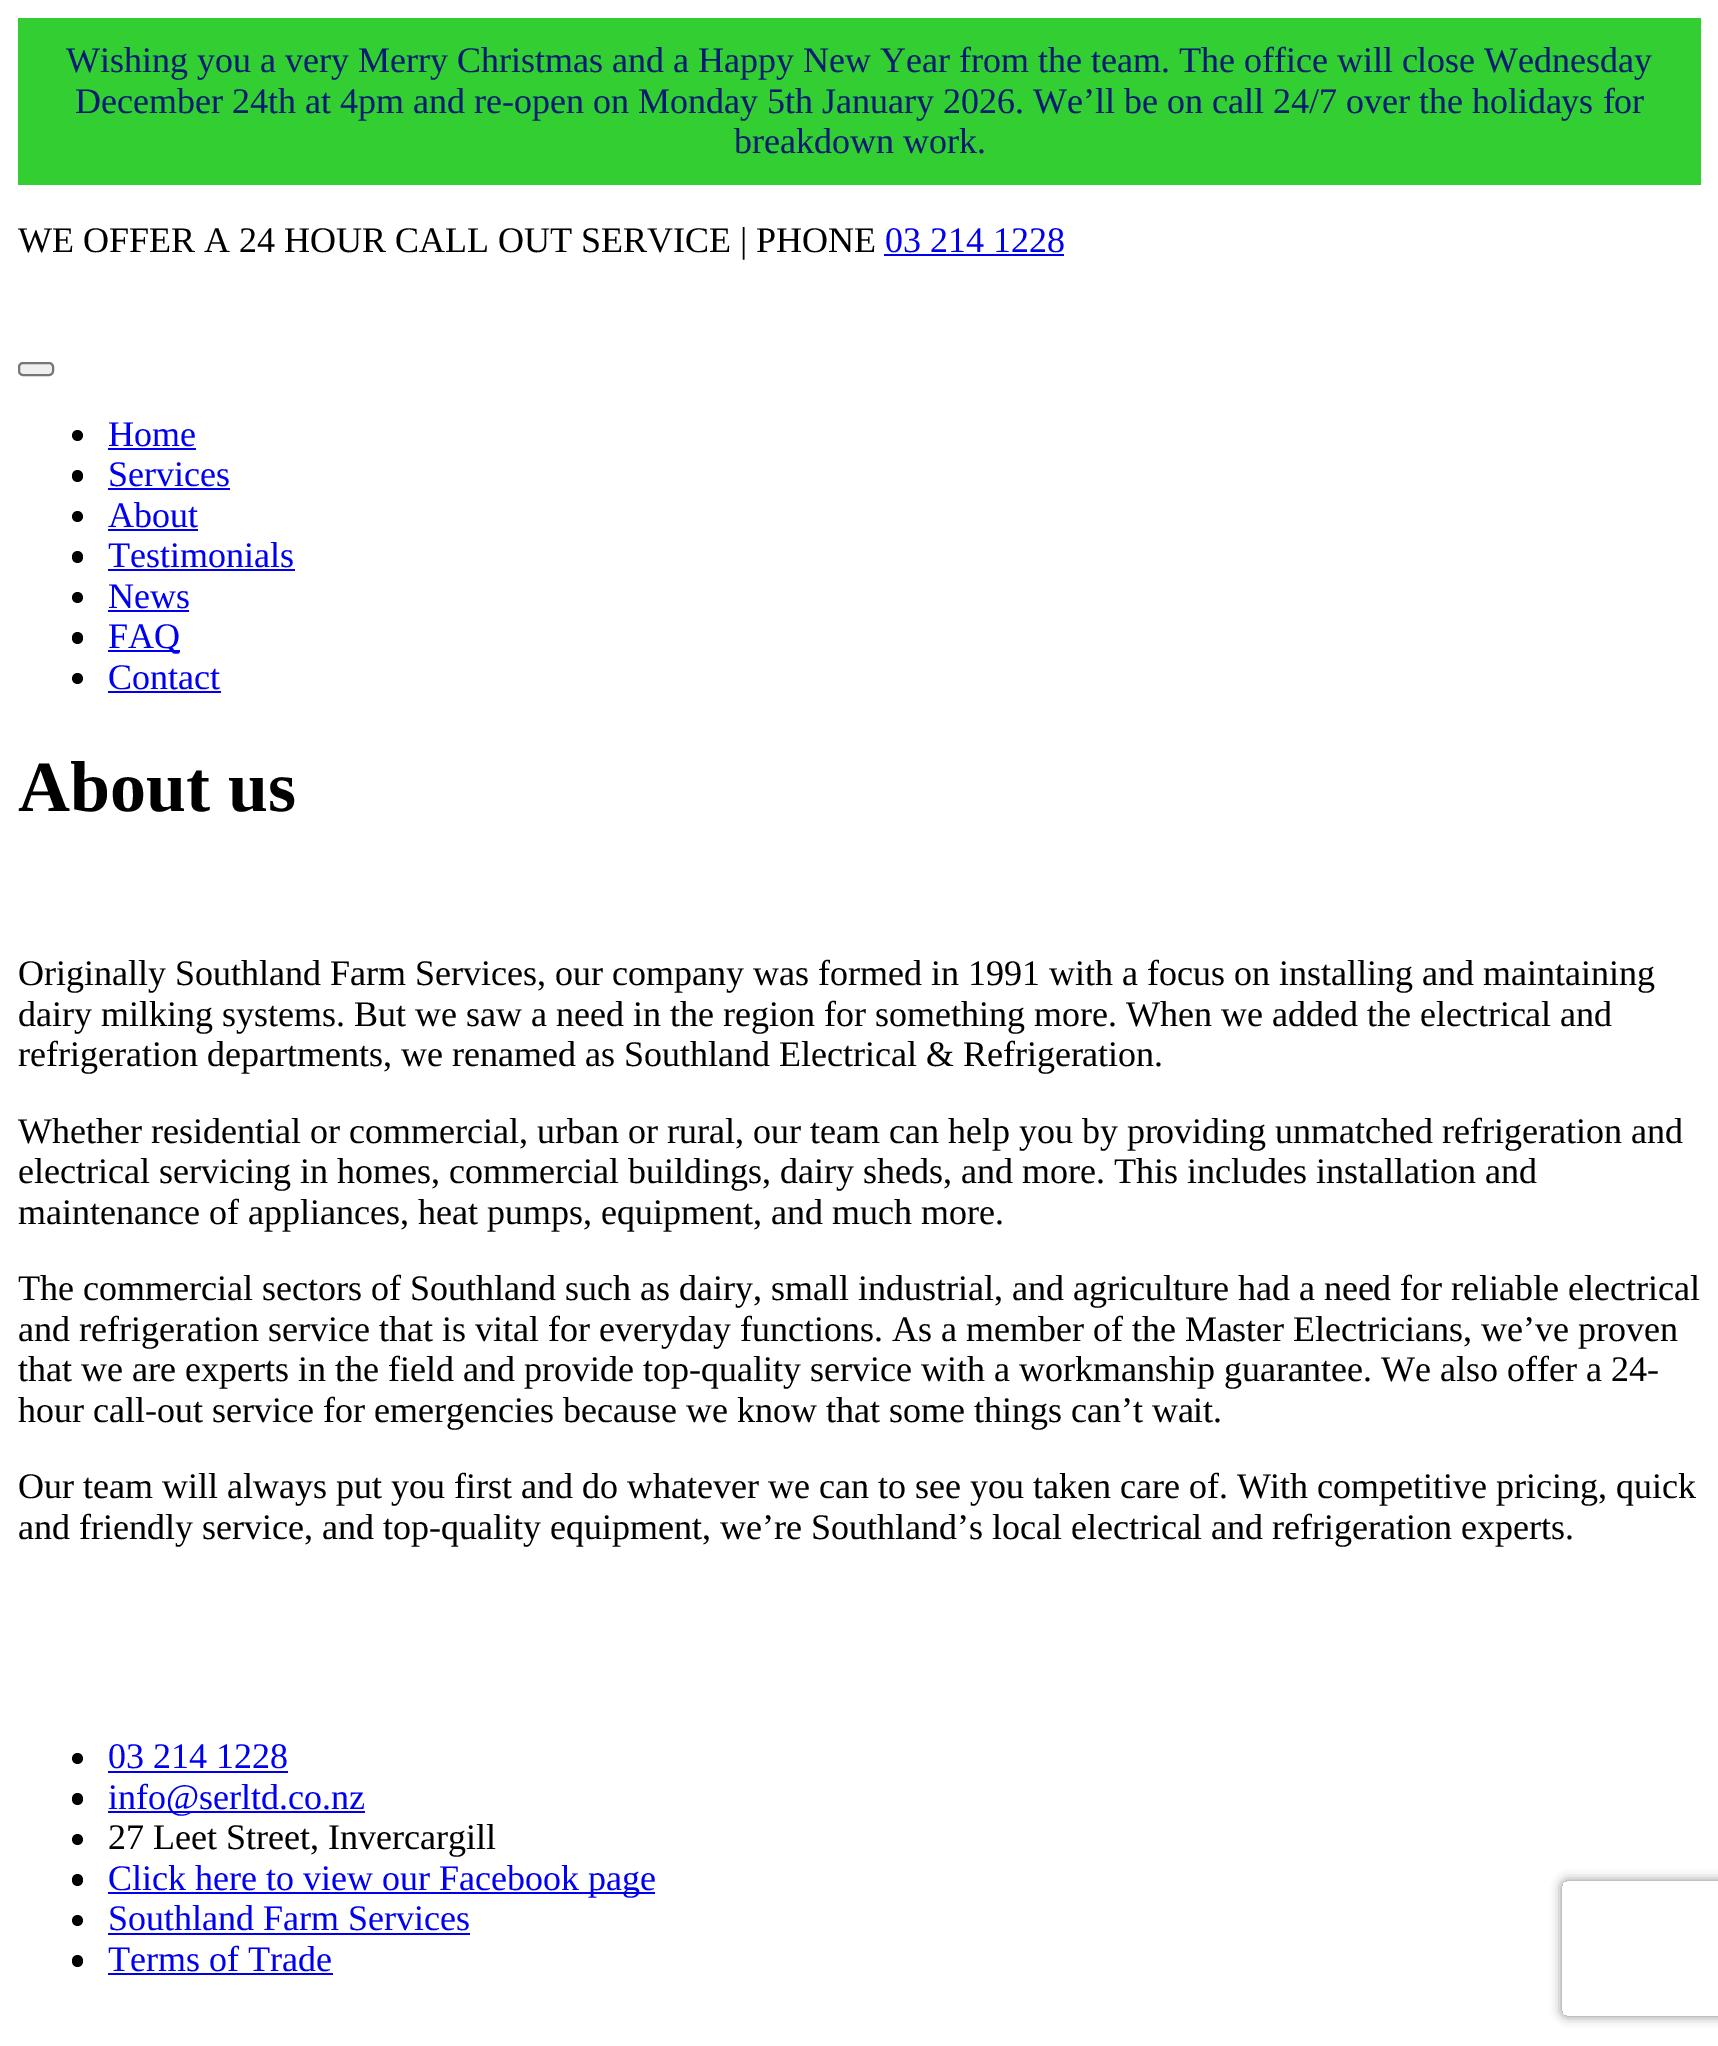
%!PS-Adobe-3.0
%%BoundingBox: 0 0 1718 2046
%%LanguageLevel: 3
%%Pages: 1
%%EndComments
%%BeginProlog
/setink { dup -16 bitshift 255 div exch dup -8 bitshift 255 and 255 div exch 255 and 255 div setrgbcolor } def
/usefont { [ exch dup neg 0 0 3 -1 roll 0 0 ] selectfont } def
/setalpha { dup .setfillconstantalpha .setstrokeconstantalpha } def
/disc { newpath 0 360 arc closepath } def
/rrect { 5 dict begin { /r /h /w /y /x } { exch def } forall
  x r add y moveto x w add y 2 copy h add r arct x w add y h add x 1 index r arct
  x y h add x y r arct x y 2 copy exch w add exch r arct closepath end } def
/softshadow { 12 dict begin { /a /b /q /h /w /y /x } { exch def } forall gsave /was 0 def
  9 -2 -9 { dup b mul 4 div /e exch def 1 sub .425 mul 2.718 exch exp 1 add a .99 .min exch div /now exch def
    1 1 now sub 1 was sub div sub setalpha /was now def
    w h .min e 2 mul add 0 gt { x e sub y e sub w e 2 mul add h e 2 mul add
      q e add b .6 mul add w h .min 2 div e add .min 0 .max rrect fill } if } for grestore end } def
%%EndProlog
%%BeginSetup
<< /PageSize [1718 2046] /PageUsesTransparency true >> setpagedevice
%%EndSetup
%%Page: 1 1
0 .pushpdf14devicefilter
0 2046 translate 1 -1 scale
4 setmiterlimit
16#FFFFFF setink
0 0 1718 2046 rectfill
16#32CE32 setink
18 18 1683 167 rectfill
/LiberationSerif-Regular 36 usefont
16#011B70 setink
[
    [(Wishing you a very Merry Christmas and a Happy New Year from the team. The office will close Wednesday) 66 72]
    [(December 24th at 4pm and re-open on Monday 5th January 2026. We’ll be on call 24/7 over the holidays for) 75 113]
    [(breakdown work.) 734 153]
] { aload pop moveto show } forall
16#000000 setink
18 252 moveto (WE OFFER A 24 HOUR CALL OUT SERVICE | PHONE) show
16#0000EE setink
885 252 moveto (03 214 1228) show
884 254 180 2 rectfill
16#EFEFEF setink
19 363 34 12 4 rrect gsave fill grestore
16#767676 setink
2 setlinewidth
stroke
16#000000 setink
77.5 435.5 5.5 disc fill
16#0000EE setink
108 446 moveto (Home) show
108 448 88 2 rectfill
16#000000 setink
72 470 11 12 5.5 rrect fill
16#0000EE setink
108 486 moveto (Services) show
108 488 122 2 rectfill
16#000000 setink
77.5 516.5 5.5 disc fill
16#0000EE setink
108 527 moveto (About) show
108 529 90 2 rectfill
16#000000 setink
72 551 11 12 5.5 rrect fill
16#0000EE setink
108 567 moveto (Testimonials) show
108 569 187 2 rectfill
16#000000 setink
77.5 597.5 5.5 disc fill
16#0000EE setink
108 608 moveto (News) show
108 610 81 2 rectfill
16#000000 setink
72 632 11 12 5.5 rrect fill
16#0000EE setink
108 650 72 2 rectfill
108 648 moveto (FAQ) show
16#000000 setink
77.5 678.5 5.5 disc fill
16#0000EE setink
108 689 moveto (Contact) show
108 691 113 2 rectfill
/LiberationSerif-Bold 72 usefont
16#000000 setink
18 811 moveto (About us) show
/LiberationSerif-Regular 36 usefont
[
    [(Originally Southland Farm Services, our company was formed in 1991 with a focus on installing and maintaining) 18 985]
    [(dairy milking systems. But we saw a need in the region for something more. When we added the electrical and) 18 1026]
    [(refrigeration departments, we renamed as Southland Electrical & Refrigeration.) 18 1066]
    [(Whether residential or commercial, urban or rural, our team can help you by providing unmatched refrigeration and) 18 1143]
    [(electrical servicing in homes, commercial buildings, dairy sheds, and more. This includes installation and) 18 1183]
    [(maintenance of appliances, heat pumps, equipment, and much more.) 18 1224]
    [(The commercial sectors of Southland such as dairy, small industrial, and agriculture had a need for reliable electrical) 18 1300]
    [(and refrigeration service that is vital for everyday functions. As a member of the Master Electricians, we’ve proven) 18 1341]
    [(that we are experts in the field and provide top-quality service with a workmanship guarantee. We also offer a 24-) 18 1381]
    [(hour call-out service for emergencies because we know that some things can’t wait.) 18 1422]
    [(Our team will always put you first and do whatever we can to see you taken care of. With competitive pricing, quick) 18 1498]
    [(and friendly service, and top-quality equipment, we’re Southland’s local electrical and refrigeration experts.) 18 1539]
] { aload pop moveto show } forall
77.5 1758.5 5.5 disc fill
16#0000EE setink
108 1768 moveto (03 214 1228) show
108 1771 180 2 rectfill
16#000000 setink
72 1793 11 12 5.5 rrect fill
16#0000EE setink
108 1811 257 2 rectfill
108 1809 moveto (info@serltd.co.nz) show
16#000000 setink
77.5 1839.5 5.5 disc fill
108 1849 moveto (27 Leet Street, Invercargill) show
72 1874 11 12 5.5 rrect fill
16#0000EE setink
108 1892 547 2 rectfill
108 1890 moveto (Click here to view our Facebook page) show
16#000000 setink
77.5 1920.5 5.5 disc fill
16#0000EE setink
108 1930 moveto (Southland Farm Services) show
108 1933 362 2 rectfill
16#000000 setink
72 1955 11 12 5.5 rrect fill
16#0000EE setink
108 1971 moveto (Terms of Trade) show
108 1973 225 2 rectfill
gsave
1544 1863 moveto 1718 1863 lineto 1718 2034 lineto 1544 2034 lineto closepath 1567 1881 moveto 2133 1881 lineto 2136 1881 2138 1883 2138 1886 curveto 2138 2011 lineto 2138 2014 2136 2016 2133 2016 curveto 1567 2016 lineto 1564 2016 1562 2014 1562 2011 curveto 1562 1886 lineto 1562 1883 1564 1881 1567 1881 curveto closepath eoclip newpath
16#808080 setink
1562 1881 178 135 5 5.5 1 softshadow
grestore
.poppdf14devicefilter showpage
%%EOF
